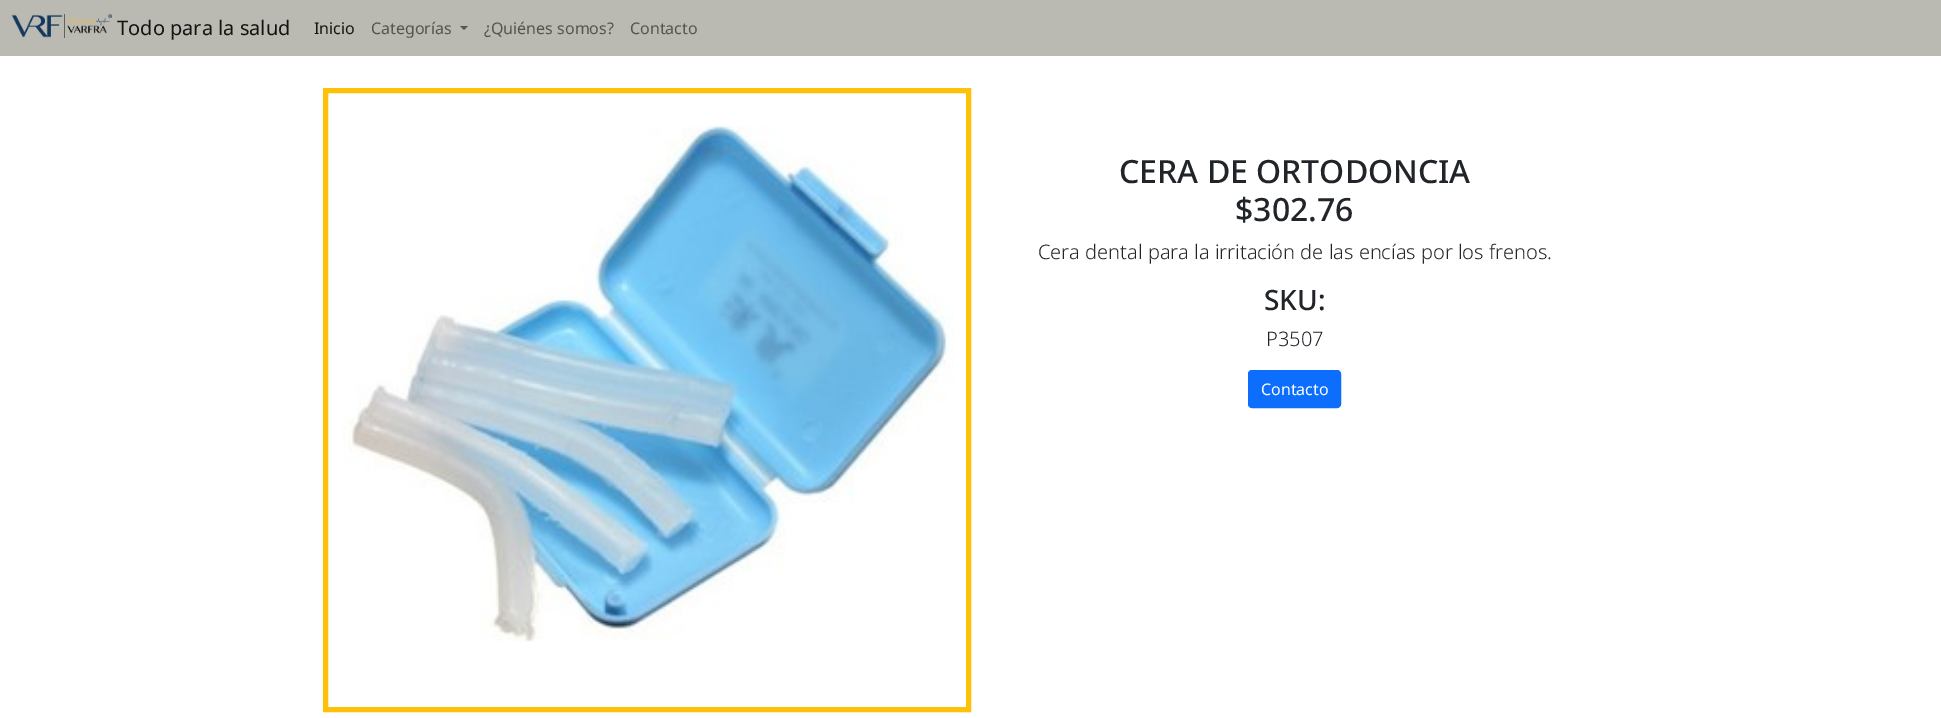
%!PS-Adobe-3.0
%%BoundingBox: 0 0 1941 718
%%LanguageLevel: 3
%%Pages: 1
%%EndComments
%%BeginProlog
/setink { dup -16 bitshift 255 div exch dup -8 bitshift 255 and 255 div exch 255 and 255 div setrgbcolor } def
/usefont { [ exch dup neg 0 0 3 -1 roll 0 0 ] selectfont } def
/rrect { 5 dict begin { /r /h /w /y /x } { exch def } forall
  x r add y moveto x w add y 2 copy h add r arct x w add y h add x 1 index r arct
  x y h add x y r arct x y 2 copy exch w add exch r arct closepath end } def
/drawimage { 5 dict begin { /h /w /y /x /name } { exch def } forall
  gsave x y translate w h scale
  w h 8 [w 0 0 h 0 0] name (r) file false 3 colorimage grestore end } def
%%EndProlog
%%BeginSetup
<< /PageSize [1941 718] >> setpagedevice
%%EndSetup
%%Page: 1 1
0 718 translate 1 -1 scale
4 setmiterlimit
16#FFFFFF setink
0 0 1941 718 rectfill
16#BABAB2 setink
0 0 1941 56 rectfill
(img1.raw) 12 14 100 24 drawimage
/NotoSans-Regular 20 usefont
16#131312 setink
117 35 moveto (Todo para la salud) show
/NotoSans-Regular 16 usefont
314 34 moveto (Inicio) show
16#545450 setink
371 34 moveto (Categorías) show
460 26 moveto 468 26 lineto 464 30 lineto closepath fill
484 34 moveto (¿Quiénes somos?) show
630 34 moveto (Contacto) show
16#FFC107 setink
5 setlinewidth
325.5 90.5 643 619 rectstroke
(img2.raw) 343 125 611 517 drawimage
/NotoSans-Medium 32 usefont
16#212529 setink
1119 183 moveto (CERA DE ORTODONCIA) show
1235 221 moveto ($302.76) show
/NotoSans-Light 20 usefont
1038 259 moveto (Cera dental para la irritación de las encías por los frenos.) show
/NotoSans-Medium 28 usefont
1264 310 moveto (SKU:) show
/NotoSans-Light 20 usefont
1266 346 moveto (P3507) show
16#0D6EFD setink
1248.5 370.5 92 37 3.5 rrect gsave fill grestore
1 setlinewidth
stroke
/NotoSans-Regular 16 usefont
16#FFFFFF setink
1261 395 moveto (Contacto) show
showpage
%%EOF
